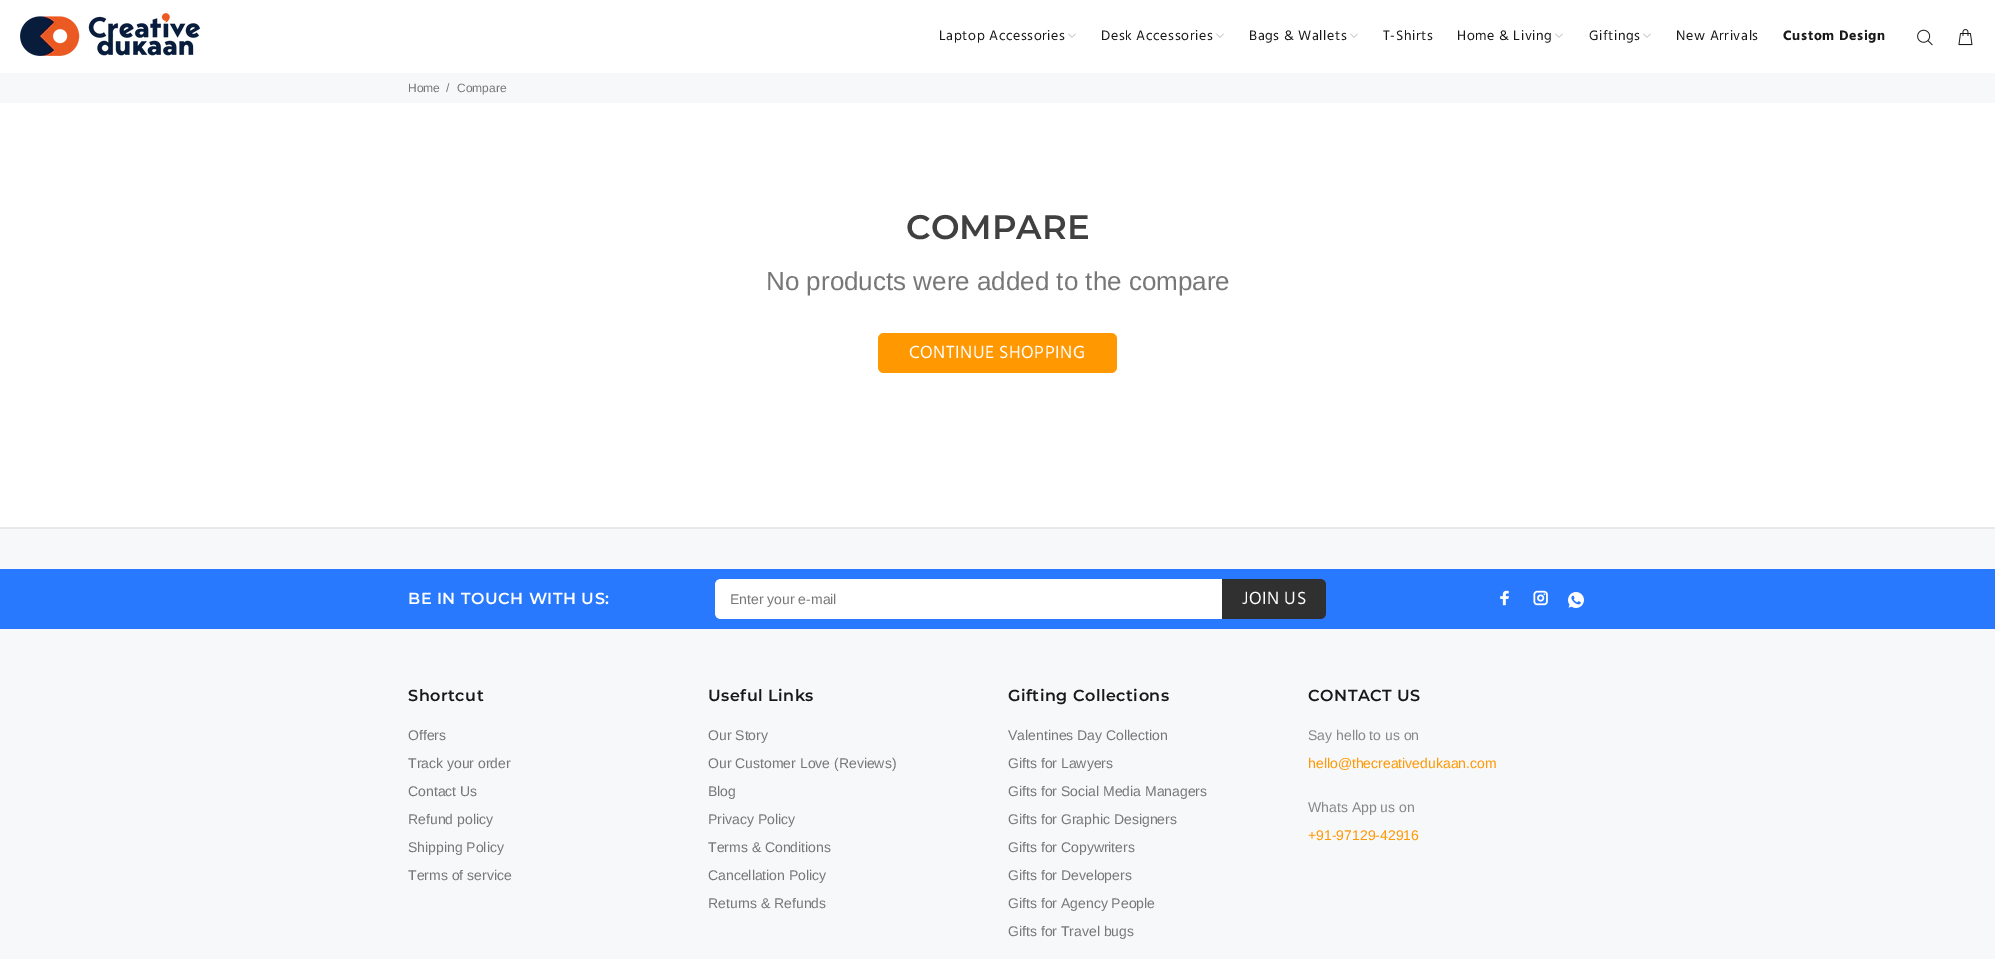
%!PS-Adobe-3.0
%%BoundingBox: 0 0 1995 959
%%LanguageLevel: 3
%%Pages: 1
%%EndComments
%%BeginProlog
/setink { dup -16 bitshift 255 div exch dup -8 bitshift 255 and 255 div exch 255 and 255 div setrgbcolor } def
/usefont { [ exch dup neg 0 0 3 -1 roll 0 0 ] selectfont } def
/rrect { 5 dict begin { /r /h /w /y /x } { exch def } forall
  x r add y moveto x w add y 2 copy h add r arct x w add y h add x 1 index r arct
  x y h add x y r arct x y 2 copy exch w add exch r arct closepath end } def
/drawimage { 5 dict begin { /h /w /y /x /name } { exch def } forall
  gsave x y translate w h scale
  w h 8 [w 0 0 h 0 0] name (r) file false 3 colorimage grestore end } def
%%EndProlog
%%BeginSetup
<< /PageSize [1995 959] >> setpagedevice
%%EndSetup
%%Page: 1 1
0 959 translate 1 -1 scale
4 setmiterlimit
16#FFFFFF setink
0 0 1995 959 rectfill
(img1.raw) 20 13 180 43 drawimage
/Hind-Regular 14 usefont
16#191919 setink
939 40 moveto 0.6 0 (Laptop Accessories) ashow
(img2.raw) 1068 33 8 5 drawimage
1101 40 moveto 0.6 0 (Desk Accessories) ashow
(img2.raw) 1216 33 8 5 drawimage
1249 40 moveto 0.6 0 (Bags & Wallets) ashow
(img2.raw) 1350 33 8 5 drawimage
1383 40 moveto 0.6 0 (T-Shirts) ashow
1457 40 moveto 0.6 0 (Home & Living) ashow
(img2.raw) 1555 33 8 5 drawimage
1589 40 moveto 0.6 0 (Giftings) ashow
(img2.raw) 1643 33 8 5 drawimage
1676 40 moveto 0.6 0 (New Arrivals) ashow
/Hind-Bold 14 usefont
1783 40 moveto 0.6 0 (Custom Design) ashow
(img3.raw) 1917 29 16 17 drawimage
(img4.raw) 1958 29 15 17 drawimage
16#F7F8FA setink
0 73 1995 30 rectfill
/LiberationSans-Regular 12 usefont
16#777777 setink
[
    [(Home) 408 92]
    [(/) 446 92]
    [(Compare) 457 92]
] { aload pop moveto show } forall
/Montserrat-SemiBold 34 usefont
16#404040 setink
906 239 moveto (COMPARE) show
/LiberationSans-Regular 26 usefont
16#777777 setink
766 290 moveto (No products were added to the compare) show
16#FF9801 setink
878 333 239 40 6 rrect fill
/Hind-Regular 18 usefont
16#FFFFFF setink
909 358 moveto 0.5 0 (CONTINUE SHOPPING) ashow
[
    [0 529 1995 430 16#F7F8FA]
    [0 527 1995 2 16#E9E7E7]
    [0 569 1995 60 16#2879FE]
] { aload pop setink rectfill } forall
/Montserrat-SemiBold 16 usefont
16#FFFFFF setink
408 604 moveto 0.5 0 (BE IN TOUCH WITH US:) ashow
721 579 moveto 1222 579 lineto 1222 619 lineto 721 619 lineto 717.5 619 715 616.5 715 613 curveto 715 585 lineto 715 581.5 717.5 579 721 579 curveto closepath fill
/LiberationSans-Regular 14 usefont
16#777777 setink
730 604 moveto (Enter your e-mail) show
16#303030 setink
1222 579 moveto 1320 579 lineto 1323.5 579 1326 581.5 1326 585 curveto 1326 613 lineto 1326 616.5 1323.5 619 1320 619 curveto 1222 619 lineto closepath fill
/Hind-Regular 18 usefont
16#FFFFFF setink
1242 604 moveto 0.5 0 (JOIN US) ashow
(img5.raw) 1500 590 10 16 drawimage
(img6.raw) 1533 590 15 16 drawimage
(img7.raw) 1568 592 16 16 drawimage
/Montserrat-SemiBold 16 usefont
16#191919 setink
408 701 moveto 0.5 0 (Shortcut) ashow
/LiberationSans-Regular 14 usefont
16#777777 setink
[
    [(Offers) 408 740]
    [(Track your order) 408 768]
    [(Contact Us) 408 796]
    [(Refund policy) 408 824]
    [(Shipping Policy) 408 852]
    [(Terms of service) 408 880]
] { aload pop moveto show } forall
/Montserrat-SemiBold 16 usefont
16#191919 setink
708 701 moveto 0.5 0 (Useful Links) ashow
/LiberationSans-Regular 14 usefont
16#777777 setink
[
    [(Our Story) 708 740]
    [(Our Customer Love \(Reviews\)) 708 768]
    [(Blog) 708 796]
    [(Privacy Policy) 708 824]
    [(Terms & Conditions) 708 852]
    [(Cancellation Policy) 708 880]
    [(Returns & Refunds) 708 908]
] { aload pop moveto show } forall
/Montserrat-SemiBold 16 usefont
16#191919 setink
1008 701 moveto 0.5 0 (Gifting Collections) ashow
/LiberationSans-Regular 14 usefont
16#777777 setink
[
    [(Valentines Day Collection) 1008 740]
    [(Gifts for Lawyers) 1008 768]
    [(Gifts for Social Media Managers) 1008 796]
    [(Gifts for Graphic Designers) 1008 824]
    [(Gifts for Copywriters) 1008 852]
    [(Gifts for Developers) 1008 880]
    [(Gifts for Agency People) 1008 908]
    [(Gifts for Travel bugs) 1008 936]
] { aload pop moveto show } forall
/Montserrat-SemiBold 16 usefont
16#191919 setink
1308 701 moveto 0.5 0 (CONTACT US) ashow
/LiberationSans-Regular 14 usefont
16#888888 setink
1308 740 moveto (Say hello to us on) show
16#FF9801 setink
1308 768 moveto (hello@thecreativedukaan.com) show
16#888888 setink
1308 812 moveto (Whats App us on) show
16#FF9801 setink
1308 840 moveto (+91-97129-42916) show
showpage
%%EOF
